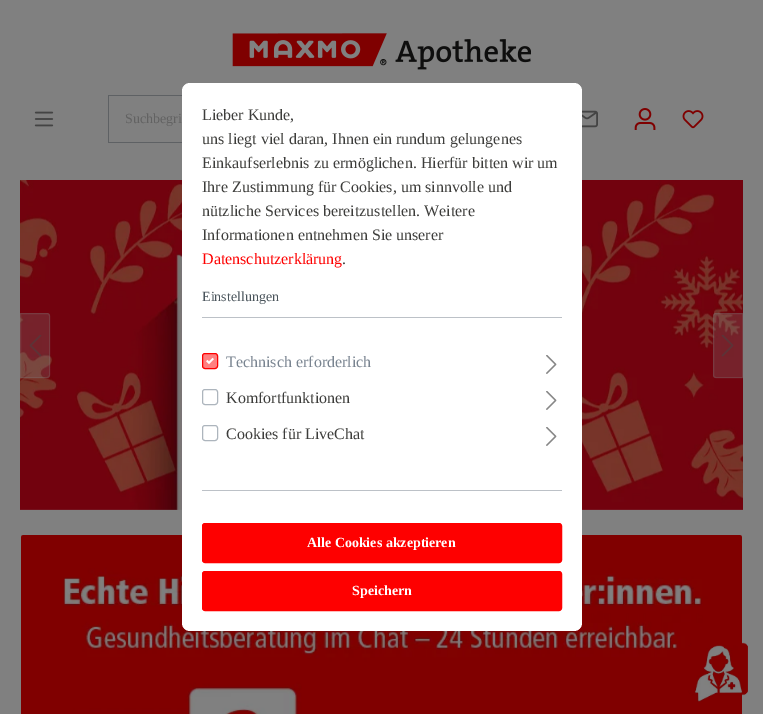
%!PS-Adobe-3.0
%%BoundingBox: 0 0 763 714
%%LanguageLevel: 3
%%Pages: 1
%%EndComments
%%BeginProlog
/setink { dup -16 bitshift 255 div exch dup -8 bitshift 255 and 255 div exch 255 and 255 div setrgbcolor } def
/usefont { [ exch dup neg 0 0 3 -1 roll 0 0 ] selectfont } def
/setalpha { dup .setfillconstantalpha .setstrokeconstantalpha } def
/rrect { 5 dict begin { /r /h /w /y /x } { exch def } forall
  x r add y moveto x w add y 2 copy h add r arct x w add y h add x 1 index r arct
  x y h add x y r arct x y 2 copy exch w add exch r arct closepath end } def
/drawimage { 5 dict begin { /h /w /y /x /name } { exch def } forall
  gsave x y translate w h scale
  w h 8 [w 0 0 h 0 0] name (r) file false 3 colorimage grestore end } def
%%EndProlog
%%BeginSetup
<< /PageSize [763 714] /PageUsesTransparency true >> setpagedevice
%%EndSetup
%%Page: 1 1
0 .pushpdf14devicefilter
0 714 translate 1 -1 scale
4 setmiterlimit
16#808080 setink
0 0 763 714 rectfill
(img1.raw) 232 33 299 37 drawimage
(img2.raw) 34 111 20 16 drawimage
[
    [108 95 74 1 16#5E6164]
    [108 142 74 1 16#5E6164]
    [108 95 1 48 16#5E6164]
] { aload pop setink rectfill } forall
/LiberationSerif-Regular 14 usefont
16#626262 setink
125 123 moveto (Suchbegri) show
(img3.raw) 582 110 16 18 drawimage
(img4.raw) 634 108 22 22 drawimage
(img5.raw) 682 110 22 19 drawimage
(img8.raw) 20 180 723 330 drawimage
(img11.raw) 21 535 721 179 drawimage
16#FFFFFF setink
182 83 400 548 8 rrect fill
16#BCC1C7 setink
202 317 360 1 rectfill
/LiberationSerif-Regular 16 usefont
16#3D3D3B setink
[
    [(Lieber Kunde,) 202 120]
    [(uns liegt viel daran, Ihnen ein rundum gelungenes) 202 144]
    [(Einkaufserlebnis zu ermöglichen. Hierfür bitten wir um) 202 168]
    [(Ihre Zustimmung für Cookies, um sinnvolle und) 202 192]
    [(nützliche Services bereitzustellen. Weitere) 202 216]
    [(Informationen entnehmen Sie unserer) 202 240]
] { aload pop moveto show } forall
16#FE0000 setink
202 264 moveto (Datenschutzerklärung) show
16#3D3D3B setink
342 264 moveto (.) show
/LiberationSerif-Regular 14 usefont
16#4A545B setink
202 301 moveto (Einstellungen) show
16#BCC1C7 setink
202 490 360 1 rectfill
16#FF8080 setink
202.5 353.5 15 15 2.5 rrect gsave fill grestore
16#FE0000 setink
stroke
/LiberationSerif-Regular 16 usefont
16#798490 setink
226 367 moveto (Technisch erforderlich) show
(img6.raw) 206 357 8 8 drawimage
(img7.raw) 546 355 11 19 drawimage
16#ADB5BD setink
202.5 389.5 15 15 2.5 rrect stroke
16#3D3D3B setink
226 403 moveto (Komfortfunktionen) show
(img7.raw) 546 391 11 19 drawimage
16#ADB5BD setink
202.5 425.5 15 15 2.5 rrect stroke
16#3D3D3B setink
226 439 moveto (Cookies für LiveChat) show
(img7.raw) 546 427 11 19 drawimage
16#FE0000 setink
202.5 523.5 359 39 2.5 rrect gsave fill grestore
stroke
/LiberationSerif-Bold 14 usefont
16#FFFFFF setink
307 547 moveto (Alle Cookies akzeptieren) show
16#FE0000 setink
202.5 571.5 359 39 2.5 rrect gsave fill grestore
stroke
16#FFFFFF setink
352 595 moveto (Speichern) show
0.25 setalpha
16#808080 setink
20 313 moveto 47 313 lineto 48.5 313 50 314.5 50 316 curveto 50 375 lineto 50 376.5 48.5 378 47 378 curveto 20 378 lineto closepath fill
20.5 313.5 moveto 47 313.5 lineto 48.5 313.5 49.5 314.5 49.5 316 curveto 49.5 375 lineto 49.5 376.5 48.5 377.5 47 377.5 curveto 20.5 377.5 lineto closepath stroke
1 setalpha
(img9.raw) 29 335 13 22 drawimage
0.25 setalpha
716 313 moveto 743 313 lineto 743 378 lineto 716 378 lineto 714.5 378 713 376.5 713 375 curveto 713 316 lineto 713 314.5 714.5 313 716 313 curveto closepath fill
716 313.5 moveto 742.5 313.5 lineto 742.5 377.5 lineto 716 377.5 lineto 714.5 377.5 713.5 376.5 713.5 375 curveto 713.5 316 lineto 713.5 314.5 714.5 313.5 716 313.5 curveto closepath stroke
1 setalpha
(img10.raw) 721 335 13 22 drawimage
(img12.raw) 688 642 60 60 drawimage
.poppdf14devicefilter showpage
%%EOF
